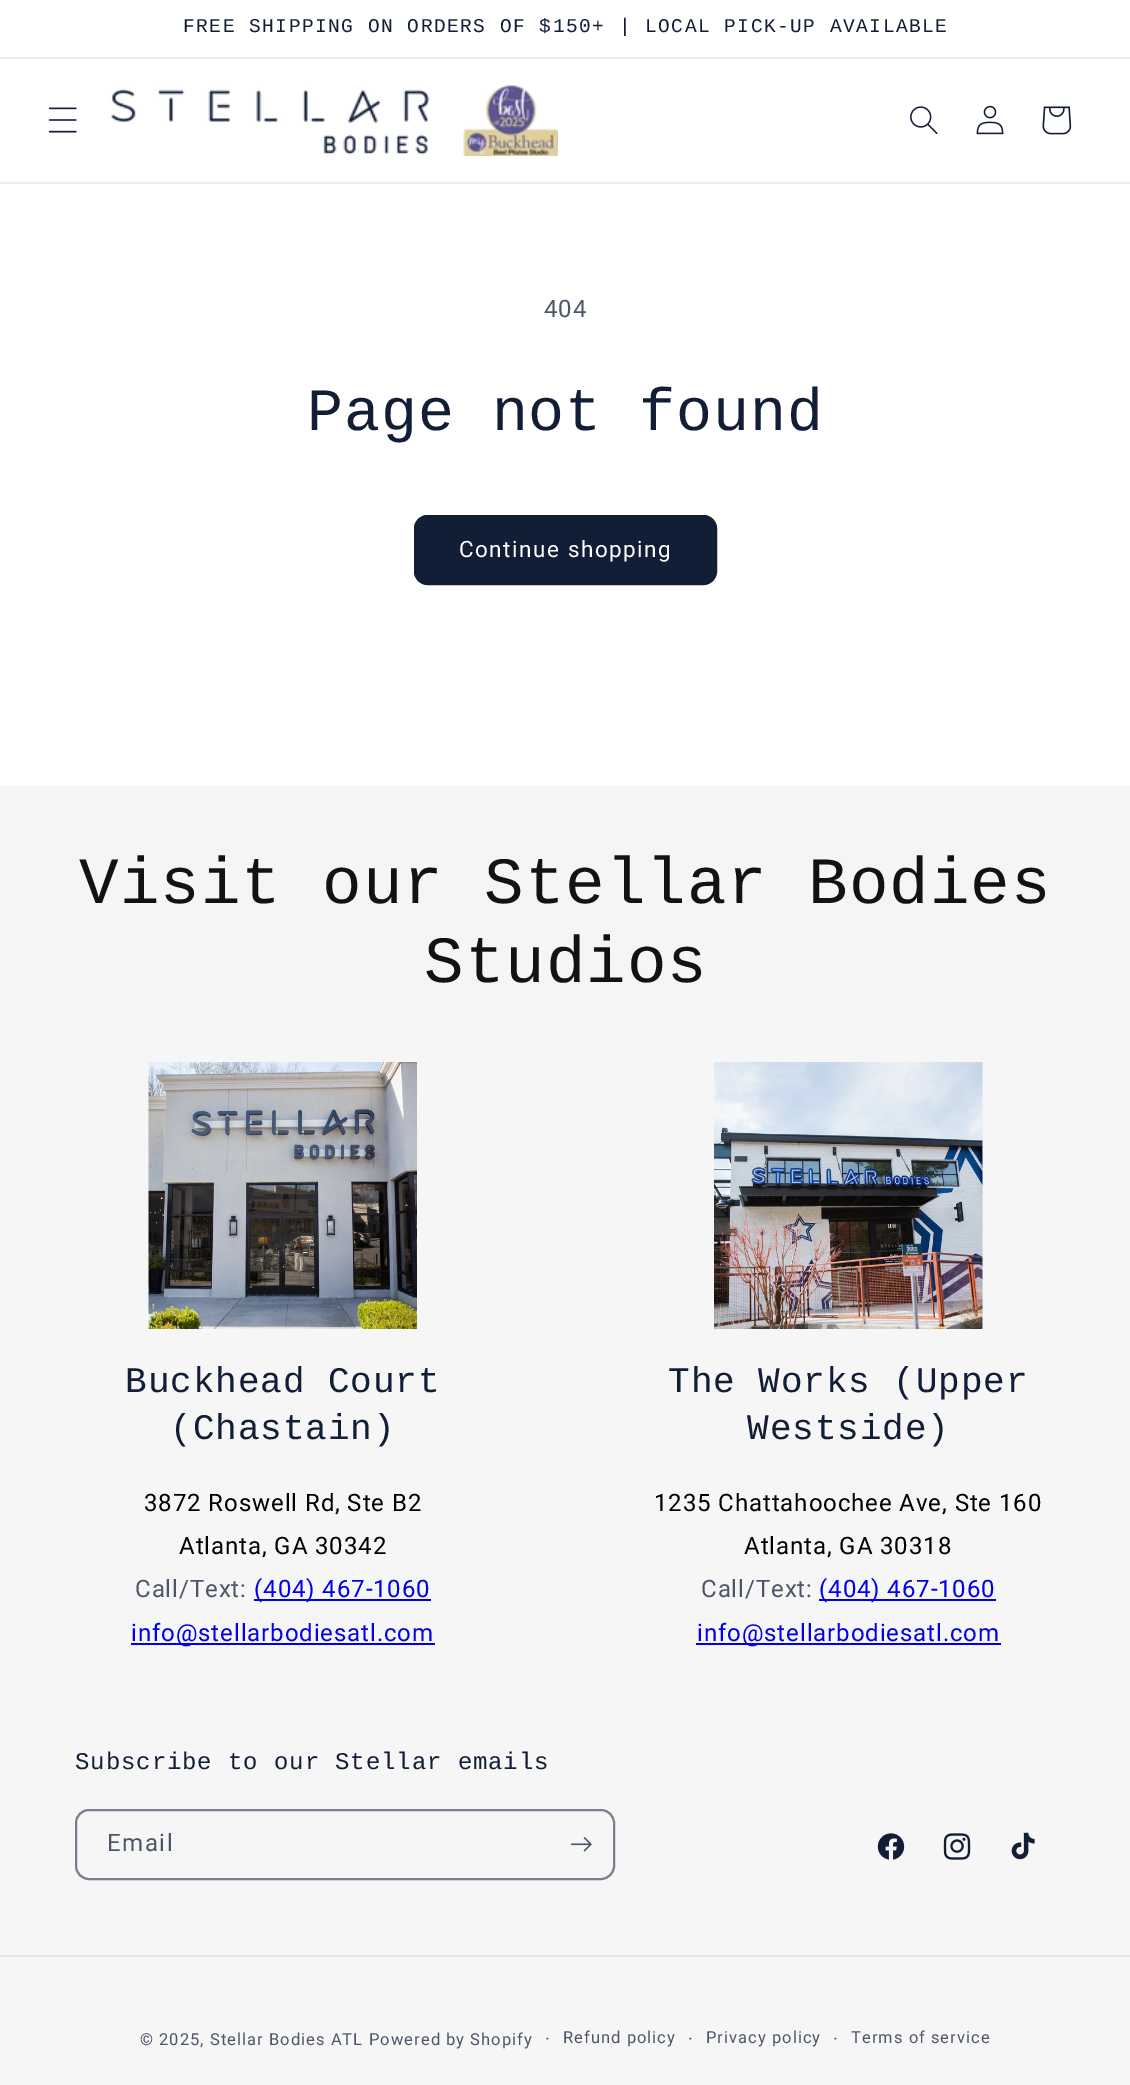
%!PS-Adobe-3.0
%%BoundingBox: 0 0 1130 2085
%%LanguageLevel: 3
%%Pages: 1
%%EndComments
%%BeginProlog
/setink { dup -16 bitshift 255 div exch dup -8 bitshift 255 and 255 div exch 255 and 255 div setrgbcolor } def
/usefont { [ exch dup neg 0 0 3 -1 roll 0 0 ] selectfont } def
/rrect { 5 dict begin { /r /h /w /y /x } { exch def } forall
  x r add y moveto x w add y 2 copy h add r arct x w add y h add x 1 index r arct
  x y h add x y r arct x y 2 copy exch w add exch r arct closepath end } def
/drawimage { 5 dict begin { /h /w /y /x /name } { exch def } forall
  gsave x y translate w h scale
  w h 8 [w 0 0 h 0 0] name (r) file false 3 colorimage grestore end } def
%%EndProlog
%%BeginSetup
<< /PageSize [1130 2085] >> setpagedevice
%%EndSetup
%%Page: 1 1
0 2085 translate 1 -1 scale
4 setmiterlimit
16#FFFFFF setink
0 0 1130 2085 rectfill
16#ECEDEF setink
0 57 1130 2 rectfill
/LiberationMono-Regular 19.5 usefont
16#121D36 setink
183 32 moveto 1.5 0 (FREE SHIPPING ON ORDERS OF $150+ | LOCAL PICK-UP AVAILABLE) ashow
16#ECEDEF setink
0 182 1130 2 rectfill
(img1.raw) 48 107 29 26 drawimage
(img2.raw) 110 85 448 71 drawimage
(img3.raw) 910 106 28 28 drawimage
(img4.raw) 976 105 28 30 drawimage
(img5.raw) 1042 106 30 29 drawimage
/Roboto-Regular 24 usefont
16#4D5668 setink
544 317 moveto 0.9 0 (404) ashow
/LiberationMono-Regular 60 usefont
16#121D36 setink
307 430 moveto 0.9 0 (Page not found) ashow
414 515 303 70 14 rrect fill
2 setlinewidth
415 516 301 68 13 rrect stroke
/Roboto-Regular 22.5 usefont
16#FFFFFF setink
459 557 moveto 1.5 0 (Continue shopping) ashow
16#F5F5F5 setink
0 786 1130 261 rectfill
/LiberationMono-Regular 66 usefont
16#121212 setink
79 903 moveto 0.9 0 (Visit our Stellar Bodies) ashow
424 982 moveto 0.9 0 (Studios) ashow
16#F6F6F7 setink
0 1047 1130 1038 rectfill
(img6.raw) 148 1062 269 267 drawimage
/LiberationMono-Regular 36 usefont
16#121D36 setink
125 1392 moveto 0.9 0 (Buckhead Court) ashow
170 1439 moveto 0.9 0 (\(Chastain\)) ashow
/Roboto-Regular 24 usefont
16#000000 setink
144 1511 moveto 0.9 0 (3872 Roswell Rd, Ste B2) ashow
179 1554 moveto 0.9 0 (Atlanta, GA 30342) ashow
16#4D5668 setink
135 1597 moveto 0.9 0 (Call/Text:) ashow
16#0000EE setink
254 1599 177 2 rectfill
254 1597 moveto 0.9 0 (\(404\) 467-1060) ashow
131 1643 304 2 rectfill
131 1641 moveto 0.9 0 (info@stellarbodiesatl.com) ashow
(img7.raw) 714 1062 269 267 drawimage
/LiberationMono-Regular 36 usefont
16#121D36 setink
668 1392 moveto 0.9 0 (The Works \(Upper) ashow
747 1439 moveto 0.9 0 (Westside\)) ashow
/Roboto-Regular 24 usefont
16#000000 setink
654 1511 moveto 0.9 0 (1235 Chattahoochee Ave, Ste 160) ashow
744 1554 moveto 0.9 0 (Atlanta, GA 30318) ashow
16#4D5668 setink
701 1597 moveto 0.9 0 (Call/Text:) ashow
16#0000EE setink
819 1599 177 2 rectfill
819 1597 moveto 0.9 0 (\(404\) 467-1060) ashow
696 1643 305 2 rectfill
697 1641 moveto 0.9 0 (info@stellarbodiesatl.com) ashow
/LiberationMono-Regular 24 usefont
16#121D36 setink
75 1769 moveto 0.9 0 (Subscribe to our Stellar emails) ashow
16#797F8D setink
76 1810 538 69 13 rrect stroke
/Roboto-Regular 24 usefont
16#4D5668 setink
107 1851 moveto 1.5 0 (Email) ashow
(img8.raw) 570 1837 22 15 drawimage
(img9.raw) 877 1833 28 27 drawimage
(img10.raw) 943 1833 28 27 drawimage
(img11.raw) 1011 1832 24 28 drawimage
16#E4E5E8 setink
0 1955 1130 2 rectfill
/Roboto-Regular 16.5 usefont
16#4D5668 setink
140 2045 moveto 1.05 0 (© 2025, Stellar Bodies ATL) ashow
369 2045 moveto 1.05 0 (Powered by Shopify) ashow
/Roboto-Regular 18 usefont
545 2045 moveto 1.05 0 (·) ashow
/Roboto-Regular 16.5 usefont
563 2043 moveto 1.05 0 (Refund policy) ashow
/Roboto-Regular 18 usefont
688 2045 moveto 1.05 0 (·) ashow
/Roboto-Regular 16.5 usefont
706 2043 moveto 1.05 0 (Privacy policy) ashow
/Roboto-Regular 18 usefont
833 2045 moveto 1.05 0 (·) ashow
/Roboto-Regular 16.5 usefont
851 2043 moveto 1.05 0 (Terms of service) ashow
showpage
%%EOF
